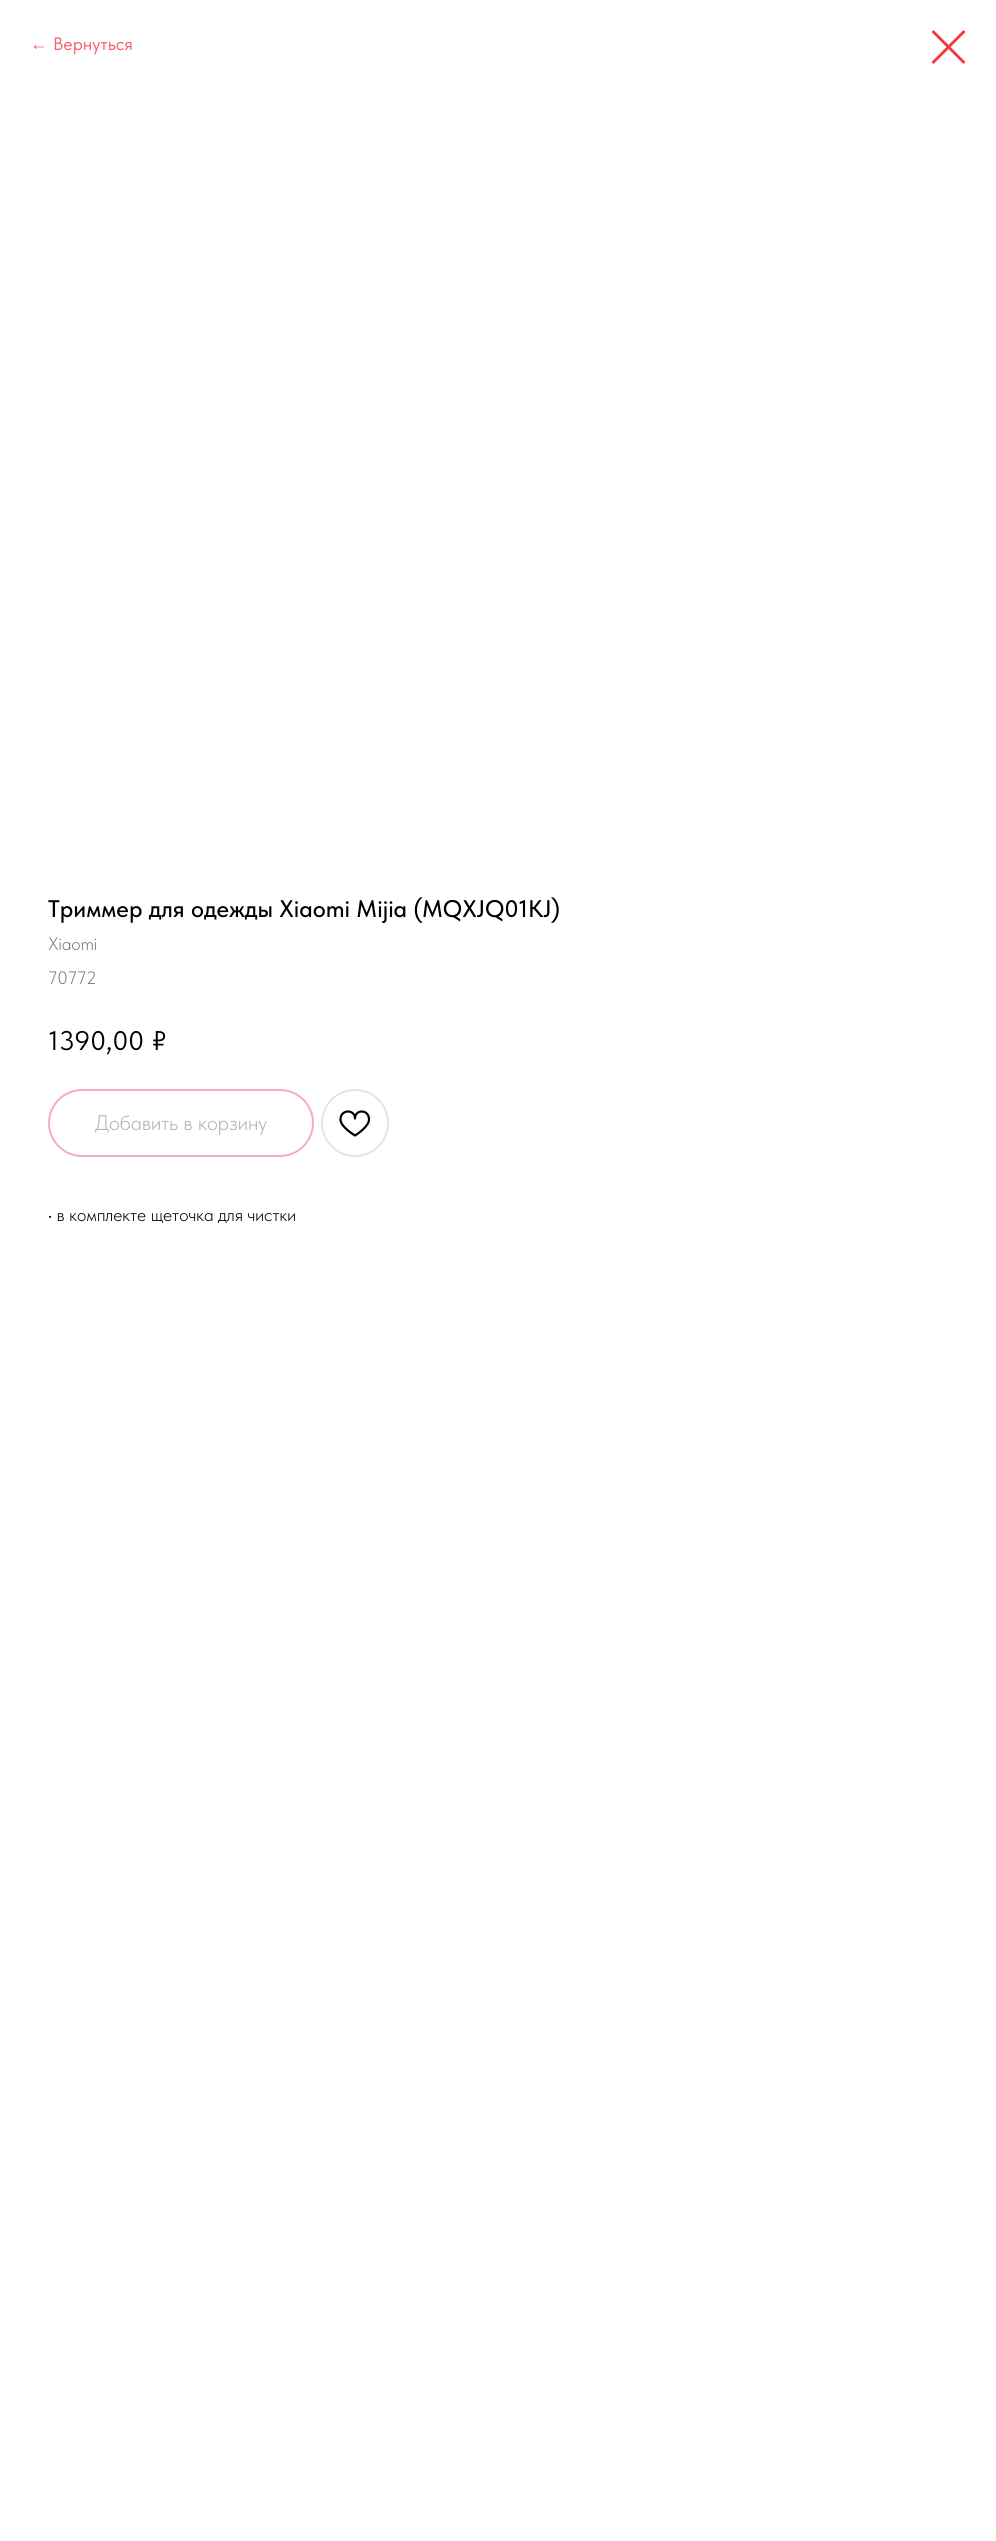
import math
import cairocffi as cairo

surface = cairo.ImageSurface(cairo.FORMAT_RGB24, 996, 2541)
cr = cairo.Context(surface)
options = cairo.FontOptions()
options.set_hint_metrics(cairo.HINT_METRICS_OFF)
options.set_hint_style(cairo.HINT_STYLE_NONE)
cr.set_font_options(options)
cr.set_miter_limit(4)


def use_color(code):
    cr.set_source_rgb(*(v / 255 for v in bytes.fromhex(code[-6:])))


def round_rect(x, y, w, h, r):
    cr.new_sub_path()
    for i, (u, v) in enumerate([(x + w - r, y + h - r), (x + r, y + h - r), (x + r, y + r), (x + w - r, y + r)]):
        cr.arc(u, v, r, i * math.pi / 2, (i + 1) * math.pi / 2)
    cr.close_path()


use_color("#ffffff")
cr.paint()
cr.select_font_face("Liberation Sans")
cr.set_font_size(18)
use_color("#f95d65")
cr.move_to(30, 50)
cr.show_text("←")
cr.select_font_face("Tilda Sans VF")
cr.move_to(53, 50)
cr.show_text("Вернуться")
use_color("#f8353e")
cr.set_fill_rule(cairo.FILL_RULE_EVEN_ODD)
cr.new_path()
cr.move_to(931.5, 32)
cr.line_to(933.5, 30)
cr.line_to(965.5, 62)
cr.line_to(963.5, 64)
cr.close_path()
cr.fill()
cr.new_path()
cr.move_to(963.5, 30)
cr.line_to(965.5, 32)
cr.line_to(933.5, 64)
cr.line_to(931.5, 62)
cr.close_path()
cr.fill()
cr.select_font_face("Tilda Sans VF Medium")
cr.set_font_size(24)
use_color("#000000")
cr.move_to(48, 917)
cr.show_text("Триммер для одежды Xiaomi Mijia (MQXJQ01KJ)")
cr.select_font_face("Tilda Sans VF Light")
cr.set_font_size(18)
use_color("#777777")
cr.move_to(48, 950)
cr.show_text("Xiaomi")
cr.move_to(48, 984)
cr.show_text("70772")
cr.select_font_face("Tilda Sans VF")
cr.set_font_size(27)
use_color("#000000")
cr.move_to(48, 1050)
cr.show_text("1390,00")
cr.move_to(152, 1050)
cr.show_text("₽")
round_rect(49, 1090, 264, 66, 33)
use_color("#f5adbd")
cr.stroke()
cr.select_font_face("Tilda Sans VF Light")
cr.set_font_size(21)
use_color("#b2b2b2")
cr.move_to(95, 1130)
cr.show_text("Добавить в корзину")
cr.new_path()
cr.arc(355, 1123, 33, 0, 2 * math.pi)
use_color("#e4e4e4")
cr.stroke()
cr.new_path()
cr.move_to(369, 1119.5)
cr.curve_to(369, 1127, 355, 1135.5, 355, 1135.5)
cr.curve_to(355, 1135.5, 340.5, 1127, 340.5, 1119.5)
cr.curve_to(340.5, 1109, 355, 1109, 355, 1118.5)
cr.curve_to(355, 1109, 369, 1109, 369, 1119.5)
cr.close_path()
use_color("#000000")
cr.set_line_width(2.2)
cr.set_line_join(cairo.LINE_JOIN_ROUND)
cr.stroke()
cr.set_font_size(18)
cr.move_to(48, 1221)
cr.show_text("• в комплекте щеточка для чистки")
surface.write_to_png("result.png")
